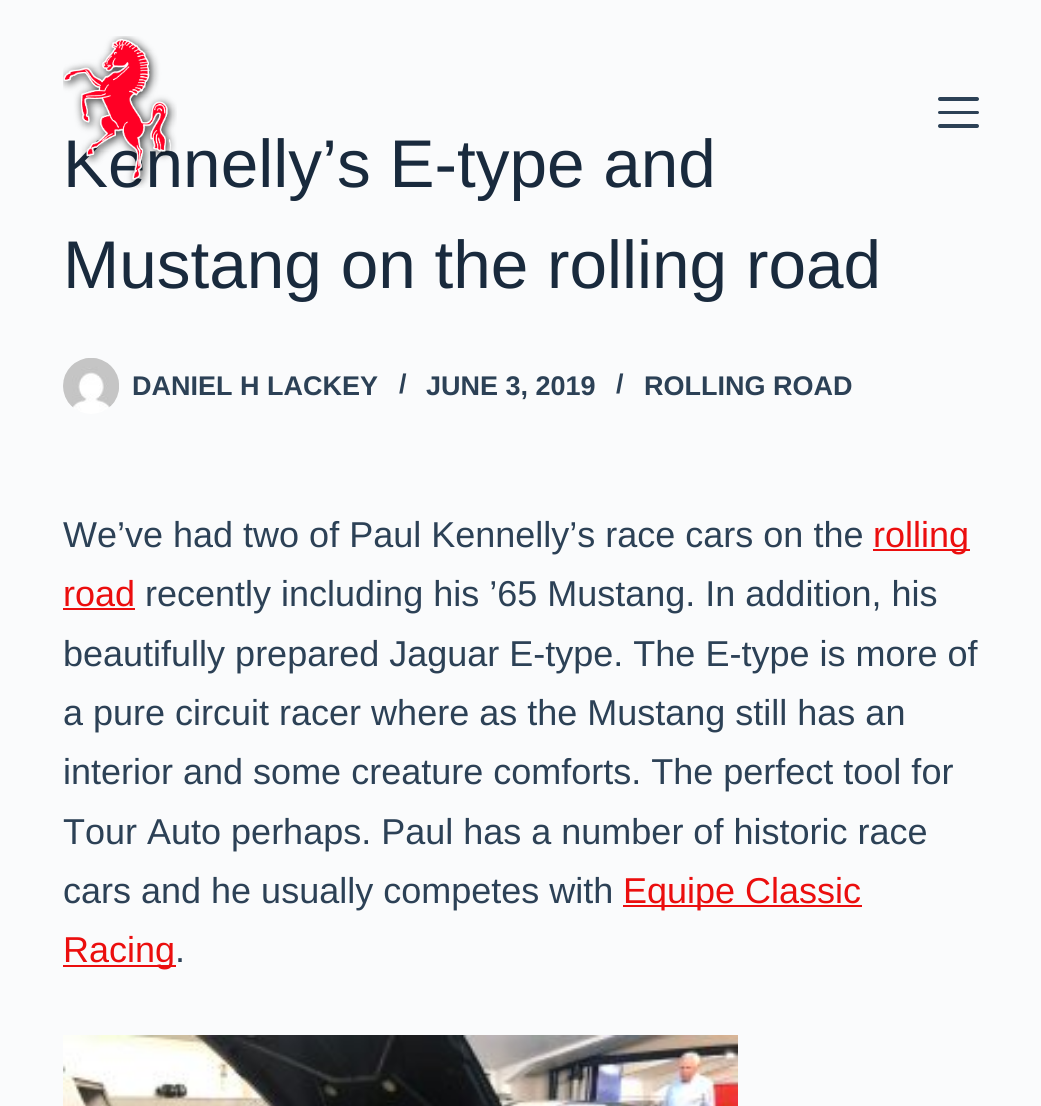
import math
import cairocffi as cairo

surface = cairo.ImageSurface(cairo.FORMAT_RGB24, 1041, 1106)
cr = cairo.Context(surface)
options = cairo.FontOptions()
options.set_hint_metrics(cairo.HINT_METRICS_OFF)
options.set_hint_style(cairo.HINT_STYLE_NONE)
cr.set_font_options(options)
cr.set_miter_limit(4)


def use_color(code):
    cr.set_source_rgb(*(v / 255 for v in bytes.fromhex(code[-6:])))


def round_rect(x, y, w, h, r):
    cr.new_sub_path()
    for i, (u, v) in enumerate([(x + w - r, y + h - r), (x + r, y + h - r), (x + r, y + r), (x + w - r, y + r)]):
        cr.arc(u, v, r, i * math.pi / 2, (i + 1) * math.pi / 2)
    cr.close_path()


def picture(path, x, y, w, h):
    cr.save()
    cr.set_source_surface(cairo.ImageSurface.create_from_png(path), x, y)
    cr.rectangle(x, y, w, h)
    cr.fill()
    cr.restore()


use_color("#fafbfc")
cr.paint()
cr.select_font_face("Liberation Sans")
cr.set_font_size(67.5)
use_color("#192a3d")
cr.move_to(63, 187)
cr.show_text("Kennelly’s E-type and")
picture("img1.png", 63, 36, 114, 152)
use_color("#2c4156")
round_rect(938, 97, 41, 4, 2)
cr.fill()
round_rect(938, 111, 41, 3, 1.5)
cr.fill()
round_rect(938, 124, 41, 4, 2)
cr.fill()
use_color("#192a3d")
cr.move_to(63, 288)
cr.show_text("Mustang on the rolling road")
picture("img2.png", 63, 358, 56, 56)
cr.select_font_face("Liberation Sans", cairo.FONT_SLANT_NORMAL, cairo.FONT_WEIGHT_BOLD)
cr.set_font_size(27)
use_color("#2c4156")
cr.move_to(132, 395)
cr.show_text("DANIEL H LACKEY")
cr.move_to(399, 393)
cr.show_text("/")
cr.move_to(426, 395)
cr.show_text("JUNE 3, 2019")
cr.move_to(616, 393)
cr.show_text("/")
cr.move_to(644, 395)
cr.show_text("ROLLING ROAD")
cr.select_font_face("Liberation Sans")
cr.set_font_size(36)
cr.move_to(63, 547)
cr.show_text("We’ve had two of Paul Kennelly’s race cars on the")
use_color("#eb0e0e")
cr.rectangle(873, 549, 97, 2)
cr.fill()
cr.move_to(873, 547)
cr.show_text("rolling")
cr.move_to(63, 606)
cr.show_text("road")
cr.rectangle(63, 608, 72, 2)
cr.fill()
use_color("#2c4156")
cr.move_to(145, 606)
cr.show_text("recently including his ’65 Mustang. In addition, his")
cr.move_to(63, 666)
cr.show_text("beautifully prepared Jaguar E-type. The E-type is more of")
cr.move_to(63, 725)
cr.show_text("a pure circuit racer where as the Mustang still has an")
cr.move_to(63, 784)
cr.show_text("interior and some creature comforts. The perfect tool for")
cr.move_to(63, 844)
cr.show_text("Tour Auto perhaps. Paul has a number of historic race")
cr.move_to(63, 903)
cr.show_text("cars and he usually competes with")
use_color("#eb0e0e")
cr.rectangle(623, 905, 239, 2)
cr.fill()
cr.move_to(623, 903)
cr.show_text("Equipe Classic")
cr.rectangle(63, 965, 113, 2)
cr.fill()
cr.move_to(63, 962)
cr.show_text("Racing")
use_color("#2c4156")
cr.move_to(175, 962)
cr.show_text(".")
picture("img3.png", 63, 1035, 675, 71)
surface.write_to_png("result.png")
